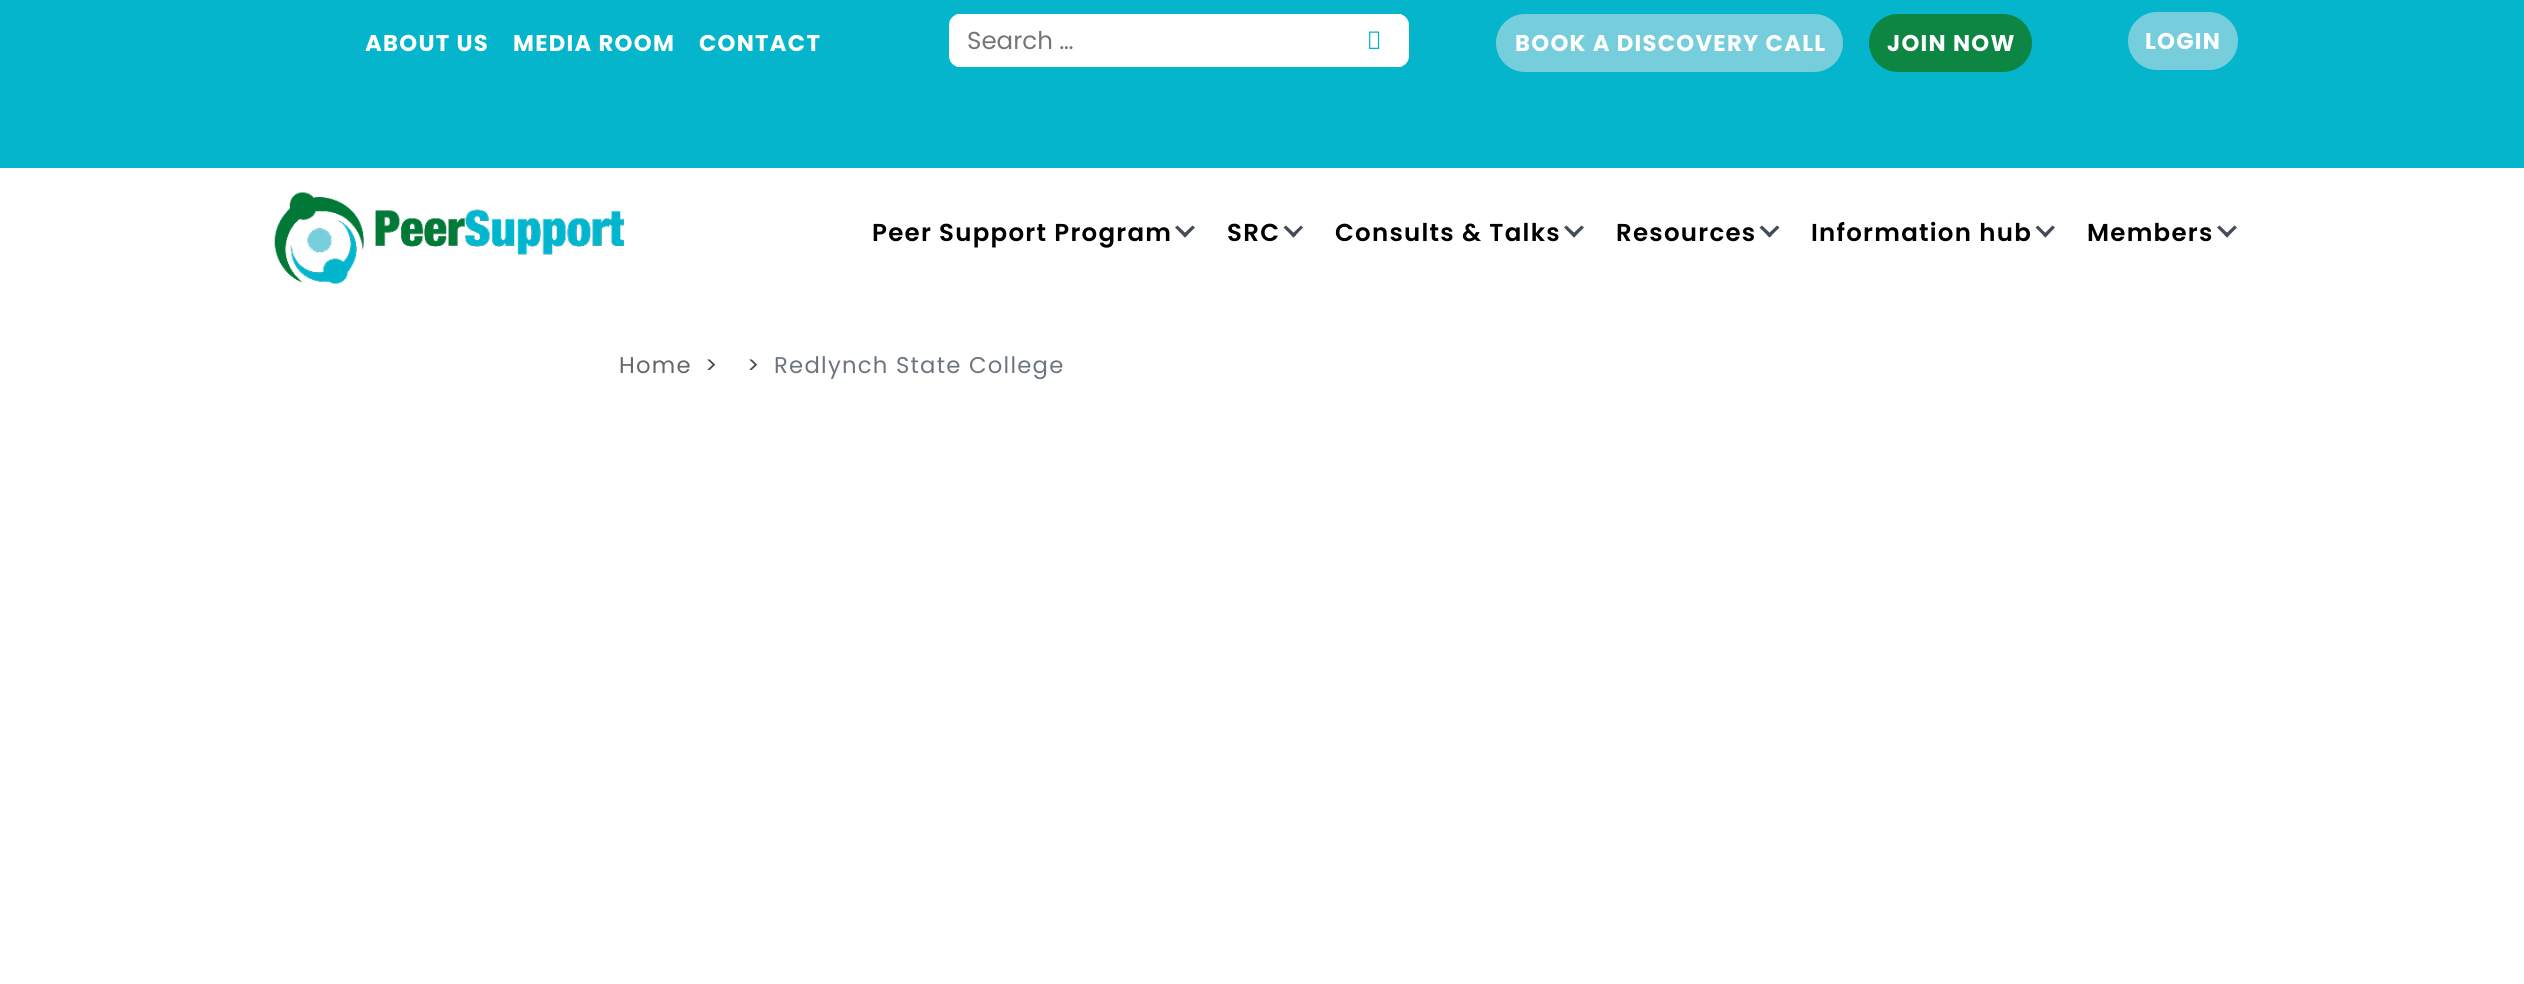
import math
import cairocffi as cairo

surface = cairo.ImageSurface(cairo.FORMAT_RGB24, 2524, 984)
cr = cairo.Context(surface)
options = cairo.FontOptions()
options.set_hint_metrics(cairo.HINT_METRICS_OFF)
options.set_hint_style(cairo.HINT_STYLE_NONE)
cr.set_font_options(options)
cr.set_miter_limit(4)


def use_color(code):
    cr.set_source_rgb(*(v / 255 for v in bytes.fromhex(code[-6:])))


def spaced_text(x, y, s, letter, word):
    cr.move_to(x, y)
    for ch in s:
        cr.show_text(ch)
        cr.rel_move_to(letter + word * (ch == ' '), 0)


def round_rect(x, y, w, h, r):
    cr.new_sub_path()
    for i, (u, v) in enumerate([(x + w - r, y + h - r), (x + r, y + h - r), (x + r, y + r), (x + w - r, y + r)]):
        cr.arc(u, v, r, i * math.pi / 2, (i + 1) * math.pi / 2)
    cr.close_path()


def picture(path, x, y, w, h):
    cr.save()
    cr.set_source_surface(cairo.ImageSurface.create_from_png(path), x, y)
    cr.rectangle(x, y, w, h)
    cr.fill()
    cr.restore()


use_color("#ffffff")
cr.paint()
use_color("#04b5cc")
cr.rectangle(0, 0, 2524, 168)
cr.fill()
cr.select_font_face("Poppins", cairo.FONT_SLANT_NORMAL, cairo.FONT_WEIGHT_BOLD)
cr.set_font_size(22.75)
use_color("#ffffff")
spaced_text(365, 51, "ABOUT US", 1.25, 0)
spaced_text(513, 51, "MEDIA ROOM", 1.25, 0)
spaced_text(699, 51, "CONTACT", 1.25, 0)
round_rect(949, 14, 460, 53, 11)
cr.fill()
cr.new_path()
cr.move_to(959, 14)
cr.line_to(1124, 14)
cr.line_to(1124, 67)
cr.line_to(959, 67)
cr.curve_to(956, 67, 954, 65, 954, 62)
cr.line_to(954, 19)
cr.curve_to(954, 16, 956, 14, 959, 14)
cr.close_path()
cr.fill()
cr.select_font_face("Poppins")
cr.set_font_size(24.5)
use_color("#757575")
cr.move_to(967, 49)
cr.show_text("Search …")
use_color("#ffffff")
cr.new_path()
cr.move_to(1356, 14)
cr.line_to(1399, 14)
cr.curve_to(1402, 14, 1404, 16, 1404, 19)
cr.line_to(1404, 62)
cr.curve_to(1404, 65, 1402, 67, 1399, 67)
cr.line_to(1356, 67)
cr.close_path()
cr.fill()
picture("img1.png", 1369, 31, 11, 18)
use_color("#76cedd")
round_rect(1496, 14, 347, 58, 29)
cr.fill()
cr.select_font_face("Poppins", cairo.FONT_SLANT_NORMAL, cairo.FONT_WEIGHT_BOLD)
cr.set_font_size(22.75)
use_color("#ffffff")
spaced_text(1515, 51, "BOOK A DISCOVERY CALL", 1.25, 0)
use_color("#0d8543")
round_rect(1869, 14, 163, 58, 29)
cr.fill()
use_color("#ffffff")
spaced_text(1887, 51, "JOIN NOW", 1.25, 0)
use_color("#76cedd")
round_rect(2128, 12, 110, 58, 29)
cr.fill()
use_color("#ffffff")
spaced_text(2145, 49, "LOGIN", 1.25, 0)
picture("img2.png", 274, 192, 350, 92)
cr.select_font_face("Poppins SemiBold")
cr.set_font_size(24.5)
use_color("#000000")
spaced_text(872, 241, "Peer Support Program", 1.25, 0)
use_color("#434b59")
cr.new_path()
cr.move_to(1192.5, 225.5)
cr.line_to(1195, 227.5)
cr.line_to(1185, 237.5)
cr.line_to(1182.5, 235)
cr.close_path()
cr.fill()
cr.new_path()
cr.move_to(1177.5, 225.5)
cr.line_to(1187.5, 235)
cr.line_to(1185, 237.5)
cr.line_to(1175, 227.5)
cr.close_path()
cr.fill()
use_color("#000000")
spaced_text(1227, 241, "SRC", 1.25, 0)
use_color("#434b59")
cr.new_path()
cr.move_to(1301, 225.5)
cr.line_to(1303, 227.5)
cr.line_to(1293.5, 237.5)
cr.line_to(1291, 235)
cr.close_path()
cr.fill()
cr.new_path()
cr.move_to(1286, 225.5)
cr.line_to(1296, 235)
cr.line_to(1293.5, 237.5)
cr.line_to(1283.5, 227.5)
cr.close_path()
cr.fill()
use_color("#000000")
spaced_text(1335, 241, "Consults & Talks", 1.25, 0)
use_color("#434b59")
cr.new_path()
cr.move_to(1581.5, 225.5)
cr.line_to(1584, 227.5)
cr.line_to(1574, 237.5)
cr.line_to(1571.5, 235)
cr.close_path()
cr.fill()
cr.new_path()
cr.move_to(1566.5, 225.5)
cr.line_to(1576.5, 235)
cr.line_to(1574, 237.5)
cr.line_to(1564, 227.5)
cr.close_path()
cr.fill()
use_color("#000000")
spaced_text(1616, 241, "Resources", 1.25, 0)
use_color("#434b59")
cr.new_path()
cr.move_to(1777, 225.5)
cr.line_to(1779.5, 227.5)
cr.line_to(1769.5, 237.5)
cr.line_to(1767, 235)
cr.close_path()
cr.fill()
cr.new_path()
cr.move_to(1762, 225.5)
cr.line_to(1772, 235)
cr.line_to(1769.5, 237.5)
cr.line_to(1759.5, 227.5)
cr.close_path()
cr.fill()
use_color("#000000")
spaced_text(1811, 241, "Information hub", 1.25, 0)
use_color("#434b59")
cr.new_path()
cr.move_to(2052.5, 225.5)
cr.line_to(2055, 227.5)
cr.line_to(2045.5, 237.5)
cr.line_to(2043, 235)
cr.close_path()
cr.fill()
cr.new_path()
cr.move_to(2038, 225.5)
cr.line_to(2047.5, 235)
cr.line_to(2045.5, 237.5)
cr.line_to(2035.5, 227.5)
cr.close_path()
cr.fill()
use_color("#000000")
spaced_text(2087, 241, "Members", 1.25, 0)
use_color("#434b59")
cr.new_path()
cr.move_to(2234.5, 225.5)
cr.line_to(2237, 227.5)
cr.line_to(2227, 237.5)
cr.line_to(2224.5, 235)
cr.close_path()
cr.fill()
cr.new_path()
cr.move_to(2219.5, 225.5)
cr.line_to(2229.5, 235)
cr.line_to(2227, 237.5)
cr.line_to(2217, 227.5)
cr.close_path()
cr.fill()
cr.select_font_face("Poppins")
cr.set_font_size(22.75)
use_color("#676767")
spaced_text(619, 373, "Home", 1.25, 0)
use_color("#434b59")
spaced_text(705, 373, ">", 1.25, 0)
spaced_text(747, 373, ">", 1.25, 0)
use_color("#6c757d")
spaced_text(774, 373, "Redlynch State College", 1.25, 0)
surface.write_to_png("result.png")
